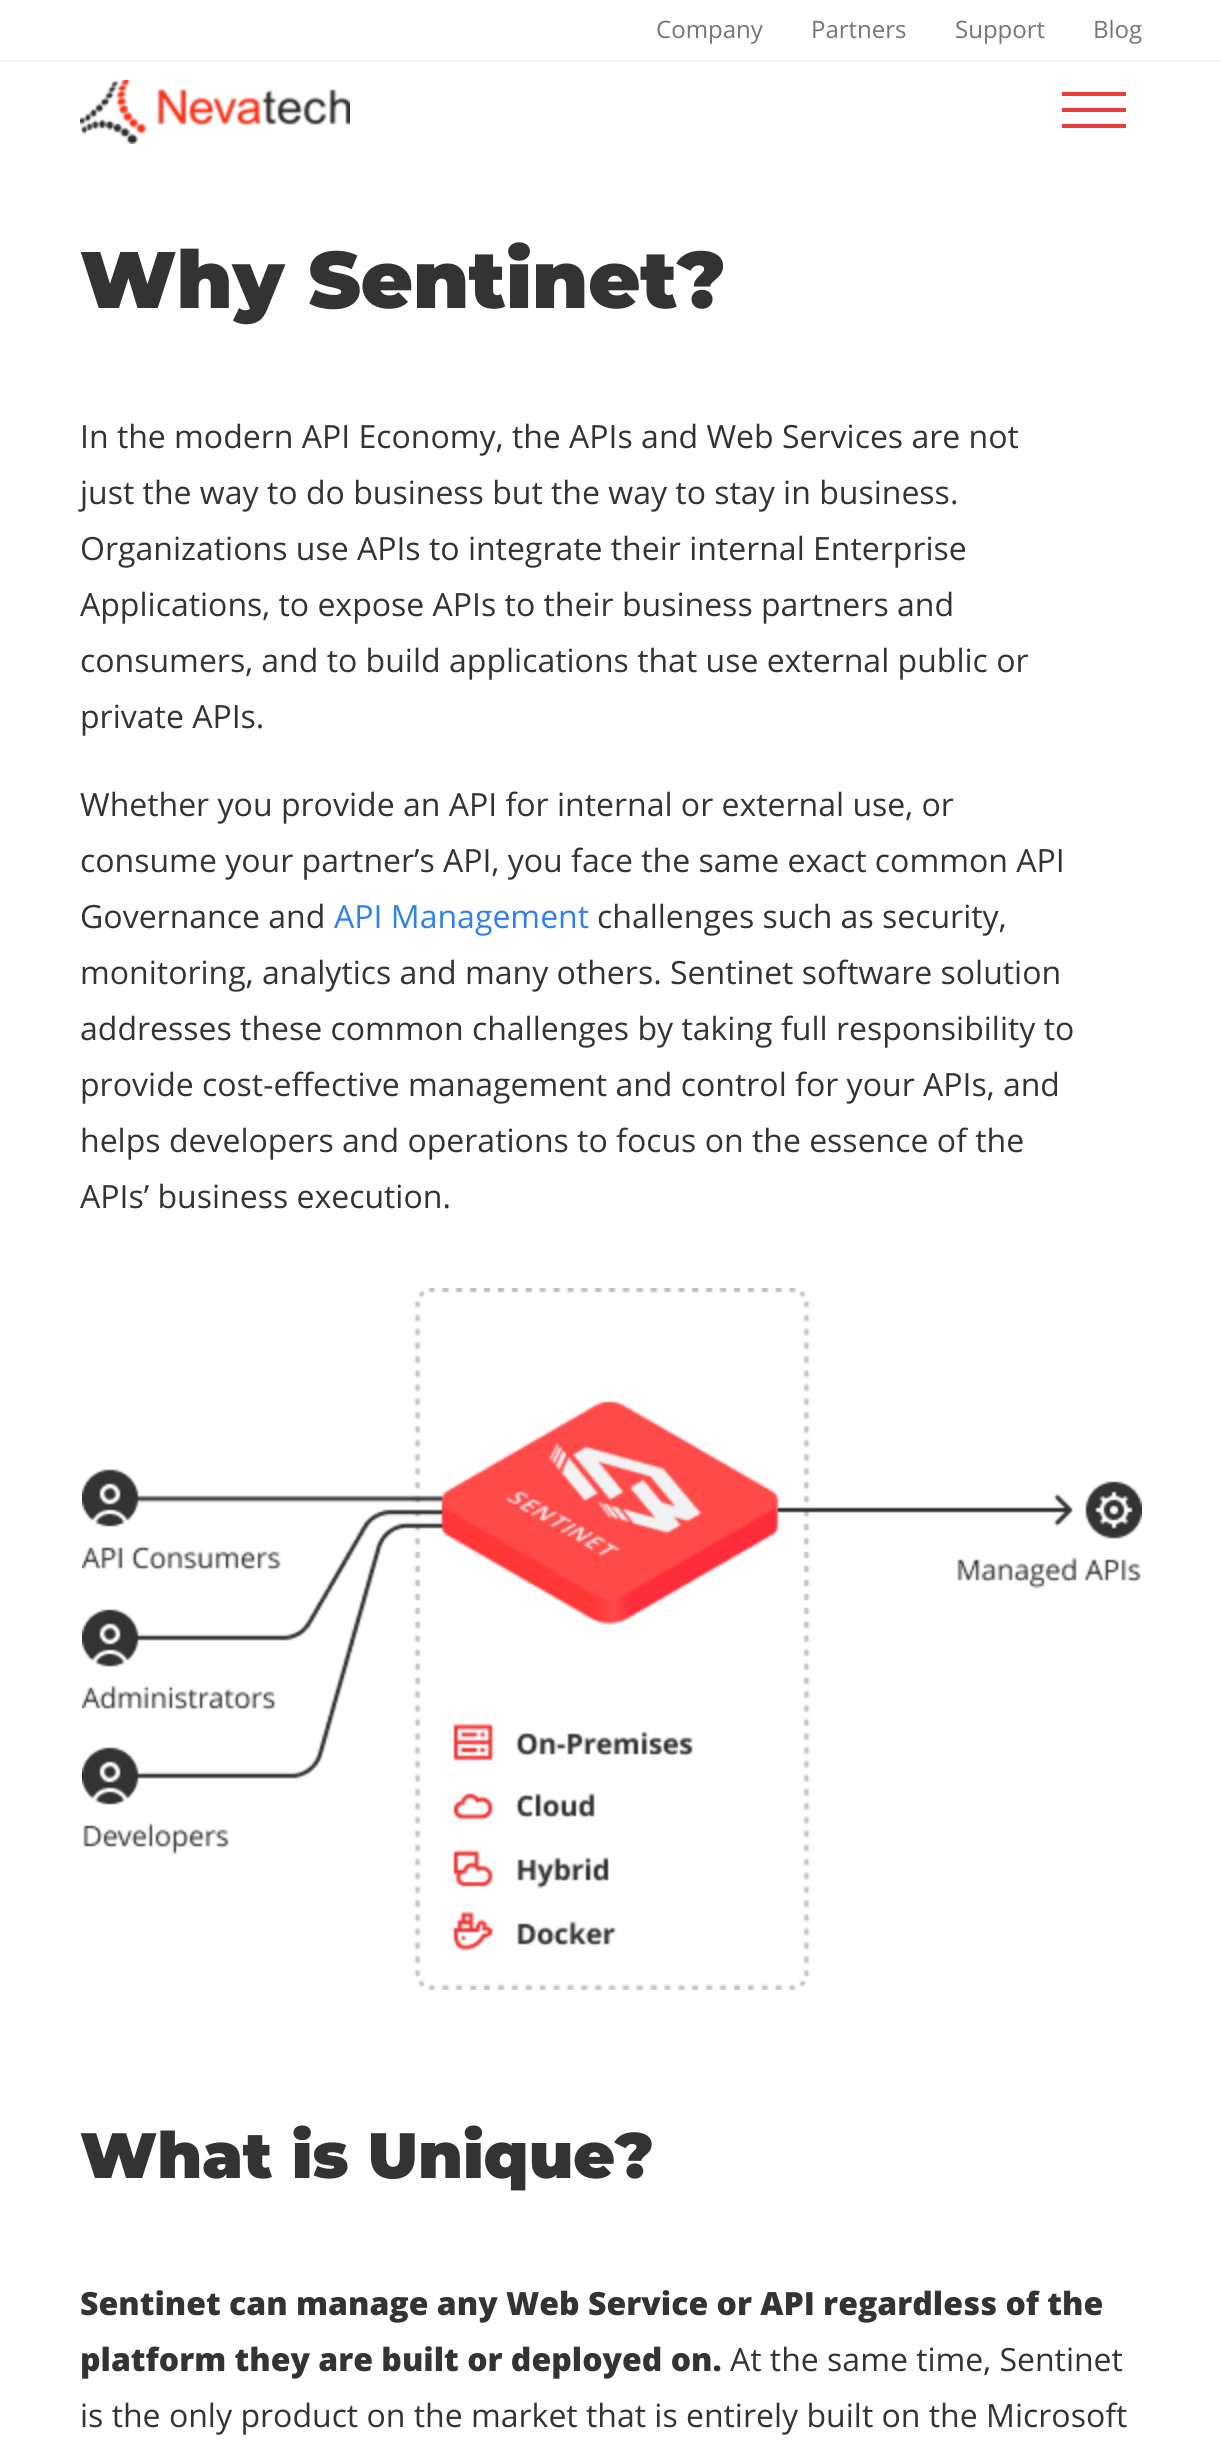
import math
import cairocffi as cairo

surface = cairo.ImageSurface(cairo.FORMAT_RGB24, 1221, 2452)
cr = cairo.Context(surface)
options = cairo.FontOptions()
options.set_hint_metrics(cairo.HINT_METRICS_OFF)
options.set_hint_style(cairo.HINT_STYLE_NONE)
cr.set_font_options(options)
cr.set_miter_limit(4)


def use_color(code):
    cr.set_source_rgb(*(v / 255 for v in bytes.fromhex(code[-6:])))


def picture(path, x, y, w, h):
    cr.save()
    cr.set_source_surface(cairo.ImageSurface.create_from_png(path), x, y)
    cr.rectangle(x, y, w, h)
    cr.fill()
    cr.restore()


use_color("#ffffff")
cr.paint()
use_color("#f2f2f2")
cr.rectangle(0, 60, 1221, 2)
cr.fill()
cr.select_font_face("Open Sans")
cr.set_font_size(24)
use_color("#757575")
cr.move_to(656, 38)
cr.show_text("Company")
cr.move_to(811, 38)
cr.show_text("Partners")
cr.move_to(955, 38)
cr.show_text("Support")
cr.move_to(1093, 38)
cr.show_text("Blog")
picture("img1.png", 80, 80, 270, 64)
use_color("#ee3a3a")
cr.rectangle(1062, 92, 64, 4)
cr.fill()
cr.rectangle(1062, 108, 64, 4)
cr.fill()
cr.rectangle(1062, 124, 64, 4)
cr.fill()
cr.select_font_face("Montserrat Black")
cr.set_font_size(80)
use_color("#333333")
cr.move_to(80, 308)
cr.show_text("Why Sentinet?")
cr.select_font_face("Open Sans")
cr.set_font_size(32)
cr.move_to(80, 448)
cr.show_text("In the modern API Economy, the APIs and Web Services are not")
cr.move_to(80, 504)
cr.show_text("just the way to do business but the way to stay in business.")
cr.move_to(80, 560)
cr.show_text("Organizations use APIs to integrate their internal Enterprise")
cr.move_to(80, 616)
cr.show_text("Applications, to expose APIs to their business partners and")
cr.move_to(80, 672)
cr.show_text("consumers, and to build applications that use external public or")
cr.move_to(80, 728)
cr.show_text("private APIs.")
cr.move_to(80, 816)
cr.show_text("Whether you provide an API for internal or external use, or")
cr.move_to(80, 872)
cr.show_text("consume your partner’s API, you face the same exact common API")
cr.move_to(80, 928)
cr.show_text("Governance and")
use_color("#2f80ed")
cr.move_to(334, 928)
cr.show_text("API Management")
use_color("#333333")
cr.move_to(597, 928)
cr.show_text("challenges such as security,")
cr.move_to(80, 984)
cr.show_text("monitoring, analytics and many others. Sentinet software solution")
cr.move_to(80, 1040)
cr.show_text("addresses these common challenges by taking full responsibility to")
cr.move_to(80, 1096)
cr.show_text("provide cost-effective management and control for your APIs, and")
cr.move_to(80, 1152)
cr.show_text("helps developers and operations to focus on the essence of the")
cr.move_to(80, 1208)
cr.show_text("APIs’ business execution.")
picture("img2.png", 82, 1288, 1060, 702)
cr.select_font_face("Montserrat Black")
cr.set_font_size(64)
cr.move_to(80, 2178)
cr.show_text("What is Unique?")
cr.select_font_face("Open Sans ExtraBold")
cr.set_font_size(32)
cr.move_to(80, 2315)
cr.show_text("Sentinet can manage any Web Service or API regardless of the")
cr.move_to(80, 2371)
cr.show_text("platform they are built or deployed on.")
cr.select_font_face("Open Sans")
cr.move_to(730, 2371)
cr.show_text("At the same time, Sentinet")
cr.move_to(80, 2427)
cr.show_text("is the only product on the market that is entirely built on the Microsoft")
surface.write_to_png("result.png")
